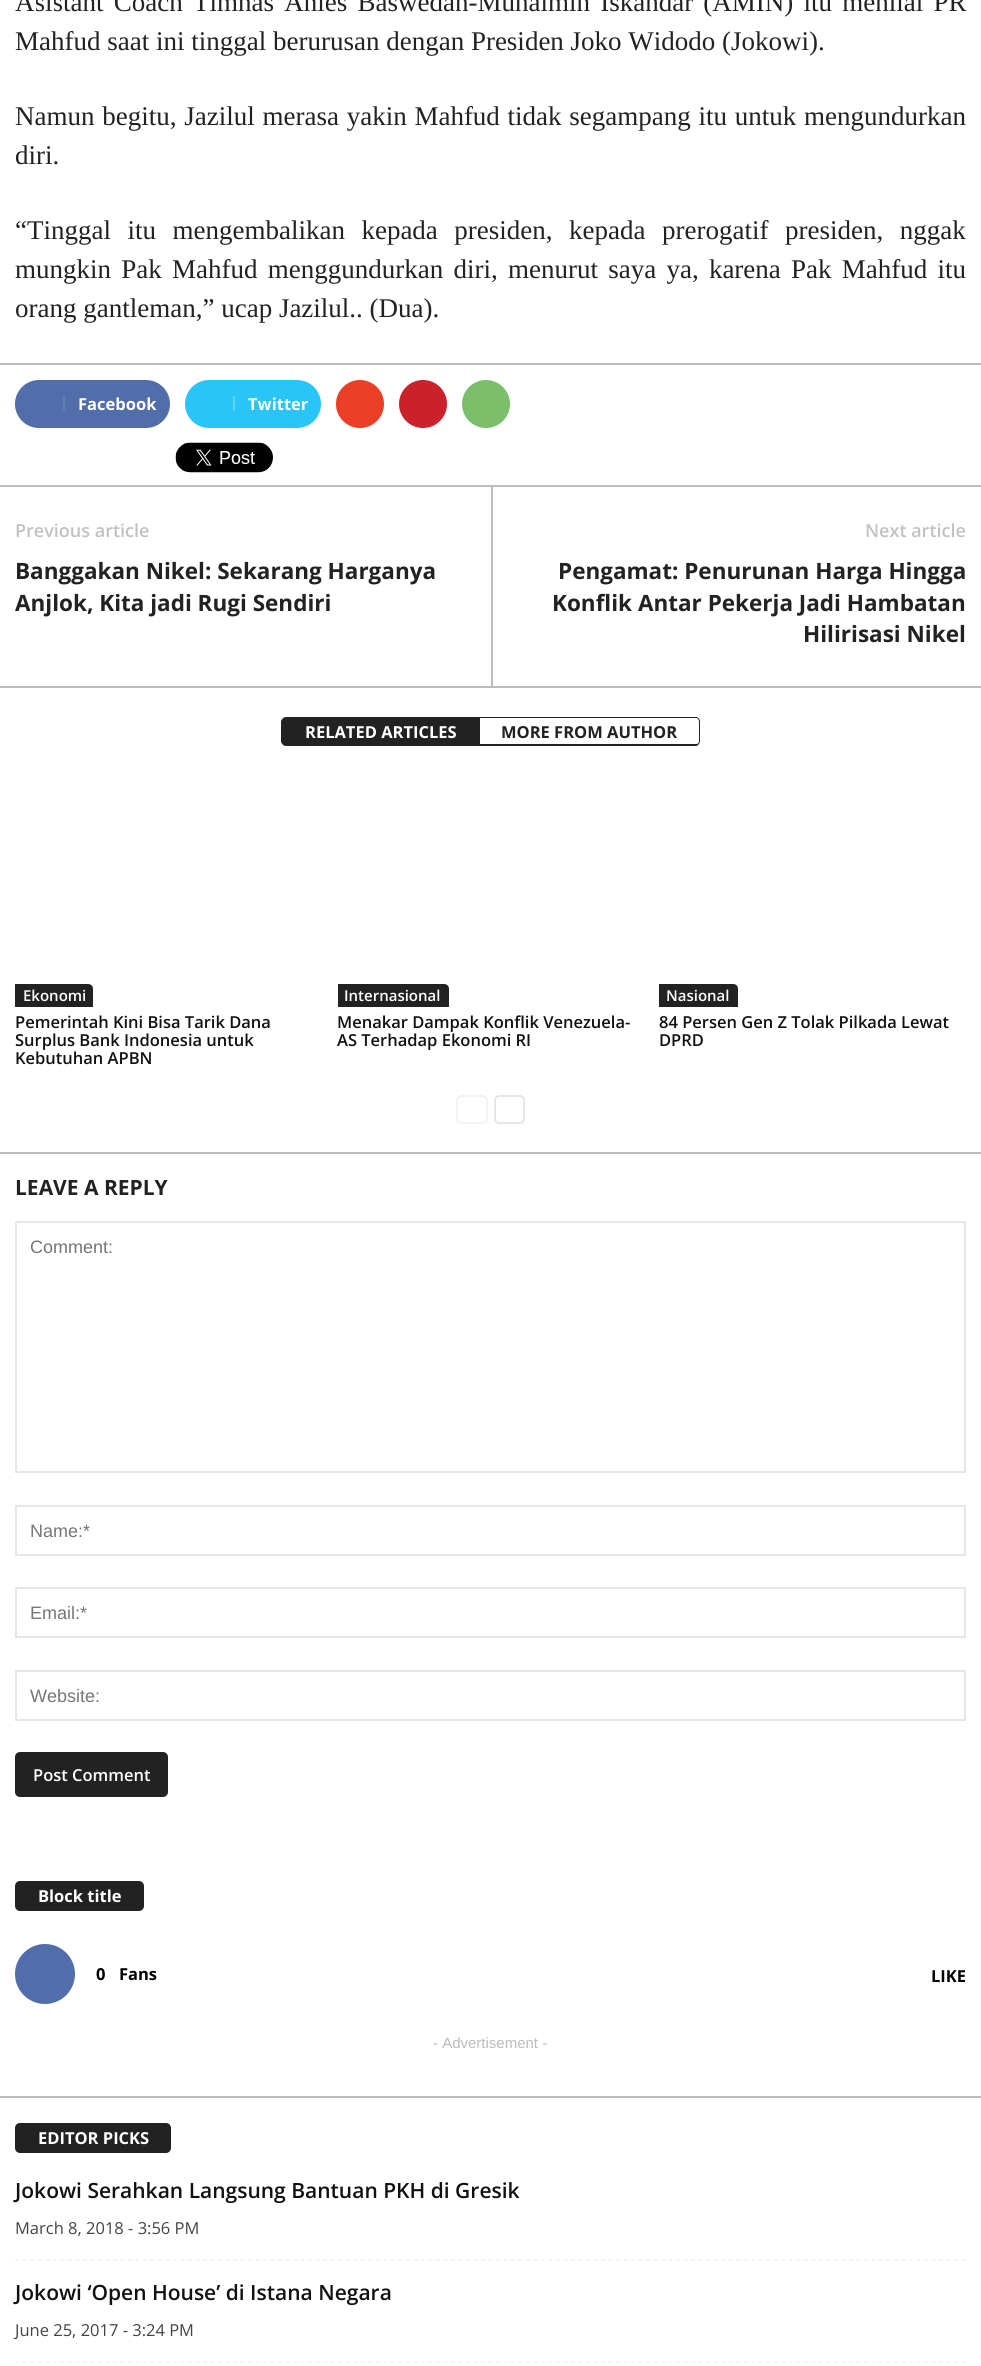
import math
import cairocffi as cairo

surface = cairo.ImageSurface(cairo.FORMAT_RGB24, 981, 2366)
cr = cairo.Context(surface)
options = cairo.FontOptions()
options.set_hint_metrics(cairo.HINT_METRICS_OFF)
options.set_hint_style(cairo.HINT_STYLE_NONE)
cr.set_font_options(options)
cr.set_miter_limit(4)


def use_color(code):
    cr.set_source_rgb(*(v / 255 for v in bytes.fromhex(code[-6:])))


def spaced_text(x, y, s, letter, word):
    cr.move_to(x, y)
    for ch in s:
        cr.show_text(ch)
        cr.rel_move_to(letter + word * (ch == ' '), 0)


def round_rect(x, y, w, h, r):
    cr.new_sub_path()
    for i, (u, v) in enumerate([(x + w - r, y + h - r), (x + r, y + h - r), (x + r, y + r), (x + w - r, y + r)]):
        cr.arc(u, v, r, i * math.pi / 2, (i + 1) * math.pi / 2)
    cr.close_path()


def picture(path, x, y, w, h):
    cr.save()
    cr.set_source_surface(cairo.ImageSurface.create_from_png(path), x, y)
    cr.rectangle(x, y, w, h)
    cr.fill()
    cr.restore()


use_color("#ffffff")
cr.paint()
cr.select_font_face("Liberation Serif")
cr.set_font_size(27)
use_color("#222222")
spaced_text(15, 11, "Asistant Coach Timnas Anies Baswedan-Muhaimin Iskandar (AMIN) itu menilai PR", 0, 3.5)
cr.move_to(15, 50)
cr.show_text("Mahfud saat ini tinggal berurusan dengan Presiden Joko Widodo (Jokowi).")
spaced_text(15, 125, "Namun begitu, Jazilul merasa yakin Mahfud tidak segampang itu untuk mengundurkan", 0, 1)
cr.move_to(15, 164)
cr.show_text("diri.")
spaced_text(15, 239, "“Tinggal itu mengembalikan kepada presiden, kepada prerogatif presiden, nggak", 0, 9.75)
spaced_text(15, 278, "mungkin Pak Mahfud menggundurkan diri, menurut saya ya, karena Pak Mahfud itu", 0, 3.5)
cr.move_to(15, 317)
cr.show_text("orang gantleman,” ucap Jazilul.. (Dua).")
use_color("#bcbcbc")
cr.rectangle(0, 363, 981, 2)
cr.fill()
use_color("#516eab")
round_rect(15, 380, 155, 48, 24)
cr.fill()
use_color("#627db3")
cr.rectangle(63, 396, 2, 15)
cr.fill()
cr.select_font_face("Open Sans", cairo.FONT_SLANT_NORMAL, cairo.FONT_WEIGHT_BOLD)
cr.set_font_size(16.5)
use_color("#ffffff")
cr.move_to(78, 410)
cr.show_text("Facebook")
use_color("#29c5f6")
round_rect(185, 380, 136, 48, 24)
cr.fill()
use_color("#5fd4f8")
cr.rectangle(233, 396, 2, 15)
cr.fill()
use_color("#ffffff")
cr.move_to(248, 410)
cr.show_text("Twitter")
use_color("#eb4026")
cr.new_path()
cr.arc(360, 404, 24, 0, 2 * math.pi)
cr.fill()
use_color("#ca212a")
cr.arc(423, 404, 24, 0, 2 * math.pi)
cr.fill()
use_color("#7bbf6a")
cr.arc(486, 404, 24, 0, 2 * math.pi)
cr.fill()
picture("img1.png", 175, 442, 98, 31)
use_color("#bcbcbc")
cr.rectangle(0, 485, 981, 2)
cr.fill()
cr.select_font_face("Open Sans SemiBold")
cr.set_font_size(18)
use_color("#c1c1c1")
cr.move_to(15, 537)
cr.show_text("Previous article")
cr.select_font_face("Open Sans", cairo.FONT_SLANT_NORMAL, cairo.FONT_WEIGHT_BOLD)
cr.set_font_size(22.5)
use_color("#222222")
cr.move_to(15, 579)
cr.show_text("Banggakan Nikel: Sekarang Harganya")
cr.move_to(15, 611)
cr.show_text("Anjlok, Kita jadi Rugi Sendiri")
use_color("#bcbcbc")
cr.rectangle(491, 486, 2, 200)
cr.fill()
cr.select_font_face("Open Sans SemiBold")
cr.set_font_size(18)
use_color("#c1c1c1")
cr.move_to(865, 537)
cr.show_text("Next article")
cr.select_font_face("Open Sans", cairo.FONT_SLANT_NORMAL, cairo.FONT_WEIGHT_BOLD)
cr.set_font_size(22.5)
use_color("#222222")
cr.move_to(558, 579)
cr.show_text("Pengamat: Penurunan Harga Hingga")
cr.move_to(552, 611)
cr.show_text("Konflik Antar Pekerja Jadi Hambatan")
cr.move_to(803, 642)
cr.show_text("Hilirisasi Nikel")
use_color("#bcbcbc")
cr.rectangle(0, 686, 981, 2)
cr.fill()
use_color("#222222")
cr.new_path()
cr.move_to(286, 718)
cr.line_to(479, 718)
cr.line_to(479, 745)
cr.line_to(286, 745)
cr.curve_to(284, 745, 282, 743, 282, 741)
cr.line_to(282, 722)
cr.curve_to(282, 720, 284, 718, 286, 718)
cr.close_path()
cr.fill_preserve()
cr.stroke()
cr.set_font_size(16.5)
use_color("#ffffff")
cr.move_to(305, 738)
cr.show_text("RELATED ARTICLES")
use_color("#222222")
cr.set_fill_rule(cairo.FILL_RULE_EVEN_ODD)
cr.new_path()
cr.move_to(480, 717)
cr.line_to(696, 717)
cr.curve_to(698, 717, 700, 719, 700, 722)
cr.line_to(700, 741)
cr.curve_to(700, 743, 698, 746, 696, 746)
cr.line_to(480, 746)
cr.close_path()
cr.move_to(480, 718)
cr.line_to(696, 718)
cr.curve_to(698, 718, 699, 720, 699, 722)
cr.line_to(699, 741)
cr.curve_to(699, 743, 698, 744, 696, 744)
cr.line_to(480, 744)
cr.close_path()
cr.fill()
cr.move_to(501, 738)
cr.show_text("MORE FROM AUTHOR")
cr.new_path()
cr.move_to(15, 984)
cr.line_to(88, 984)
cr.curve_to(91, 984, 93, 986, 93, 989)
cr.line_to(93, 1007)
cr.line_to(15, 1007)
cr.close_path()
cr.fill()
cr.select_font_face("Open Sans SemiBold")
cr.set_font_size(15)
use_color("#ffffff")
cr.move_to(23, 1001)
cr.show_text("Ekonomi")
cr.set_font_size(16.5)
use_color("#111111")
cr.move_to(15, 1028)
cr.show_text("Pemerintah Kini Bisa Tarik Dana")
cr.move_to(15, 1046)
cr.show_text("Surplus Bank Indonesia untuk")
cr.move_to(15, 1064)
cr.show_text("Kebutuhan APBN")
use_color("#222222")
cr.new_path()
cr.move_to(338, 984)
cr.line_to(444, 984)
cr.curve_to(447, 984, 449, 986, 449, 989)
cr.line_to(449, 1007)
cr.line_to(338, 1007)
cr.close_path()
cr.fill()
cr.set_font_size(15)
use_color("#ffffff")
cr.move_to(344, 1001)
cr.show_text("Internasional")
cr.set_font_size(16.5)
use_color("#111111")
cr.move_to(337, 1028)
cr.show_text("Menakar Dampak Konflik Venezuela-")
cr.move_to(337, 1046)
cr.show_text("AS Terhadap Ekonomi RI")
use_color("#222222")
cr.new_path()
cr.move_to(659, 984)
cr.line_to(733, 984)
cr.curve_to(736, 984, 738, 986, 738, 989)
cr.line_to(738, 1007)
cr.line_to(659, 1007)
cr.close_path()
cr.fill()
cr.set_font_size(15)
use_color("#ffffff")
cr.move_to(666, 1001)
cr.show_text("Nasional")
cr.set_font_size(16.5)
use_color("#111111")
cr.move_to(659, 1028)
cr.show_text("84 Persen Gen Z Tolak Pilkada Lewat")
cr.move_to(659, 1046)
cr.show_text("DPRD")
round_rect(457, 1096, 30, 27, 4)
use_color("#f3f3f3")
cr.stroke()
round_rect(495, 1096, 29, 27, 4)
use_color("#e6e6e6")
cr.stroke()
use_color("#bcbcbc")
cr.rectangle(0, 1152, 981, 2)
cr.fill()
cr.select_font_face("Open Sans", cairo.FONT_SLANT_NORMAL, cairo.FONT_WEIGHT_BOLD)
cr.set_font_size(21)
use_color("#222222")
cr.move_to(15, 1195)
cr.show_text("LEAVE A REPLY")
cr.rectangle(16, 1222, 949, 250)
use_color("#e6e6e6")
cr.stroke()
cr.select_font_face("Liberation Sans")
cr.set_font_size(18)
use_color("#757575")
cr.move_to(30, 1253)
cr.show_text("Comment:")
cr.rectangle(16, 1506, 949, 49)
use_color("#e6e6e6")
cr.stroke()
use_color("#757575")
cr.move_to(30, 1537)
cr.show_text("Name:*")
cr.rectangle(16, 1588, 949, 49)
use_color("#e6e6e6")
cr.stroke()
use_color("#757575")
cr.move_to(30, 1619)
cr.show_text("Email:*")
cr.rectangle(16, 1671, 949, 49)
use_color("#e6e6e6")
cr.stroke()
use_color("#757575")
cr.move_to(30, 1702)
cr.show_text("Website:")
use_color("#222222")
round_rect(15, 1752, 153, 45, 5)
cr.fill()
cr.select_font_face("Open Sans SemiBold")
cr.set_font_size(16.5)
use_color("#ffffff")
cr.move_to(33, 1781)
cr.show_text("Post Comment")
use_color("#222222")
round_rect(15, 1881, 129, 30, 5)
cr.fill()
cr.select_font_face("Open Sans", cairo.FONT_SLANT_NORMAL, cairo.FONT_WEIGHT_BOLD)
use_color("#ffffff")
cr.move_to(38, 1902)
cr.show_text("Block title")
use_color("#516eab")
cr.new_path()
cr.arc(45, 1974, 30, 0, 2 * math.pi)
cr.fill()
use_color("#000000")
cr.move_to(96, 1980)
cr.show_text("0")
cr.move_to(119, 1980)
cr.show_text("Fans")
cr.move_to(931, 1982)
cr.show_text("LIKE")
cr.select_font_face("Liberation Sans")
cr.set_font_size(15)
use_color("#bbbbbb")
cr.move_to(433, 2048)
cr.show_text("- Advertisement -")
use_color("#bcbcbc")
cr.rectangle(0, 2096, 981, 2)
cr.fill()
use_color("#222222")
round_rect(15, 2123, 156, 30, 5)
cr.fill()
cr.select_font_face("Open Sans", cairo.FONT_SLANT_NORMAL, cairo.FONT_WEIGHT_BOLD)
cr.set_font_size(16.5)
use_color("#ffffff")
cr.move_to(38, 2144)
cr.show_text("EDITOR PICKS")
cr.new_path()
cr.move_to(15, 2260)
cr.line_to(966, 2260)
use_color("#f1f1f1")
cr.set_line_width(1.5)
cr.set_dash([4.5, 3.01])
cr.stroke()
cr.select_font_face("Open Sans SemiBold")
cr.set_font_size(21)
use_color("#111111")
cr.move_to(15, 2198)
cr.show_text("Jokowi Serahkan Langsung Bantuan PKH di Gresik")
cr.select_font_face("Open Sans")
cr.set_font_size(16.5)
use_color("#444444")
cr.move_to(15, 2234)
cr.show_text("March 8, 2018 - 3:56 PM")
cr.new_path()
cr.move_to(15, 2362)
cr.line_to(966, 2362)
use_color("#f1f1f1")
cr.stroke()
cr.select_font_face("Open Sans SemiBold")
cr.set_font_size(21)
use_color("#111111")
cr.move_to(15, 2300)
cr.show_text("Jokowi ‘Open House’ di Istana Negara")
cr.select_font_face("Open Sans")
cr.set_font_size(16.5)
use_color("#444444")
cr.move_to(15, 2336)
cr.show_text("June 25, 2017 - 3:24 PM")
surface.write_to_png("result.png")
